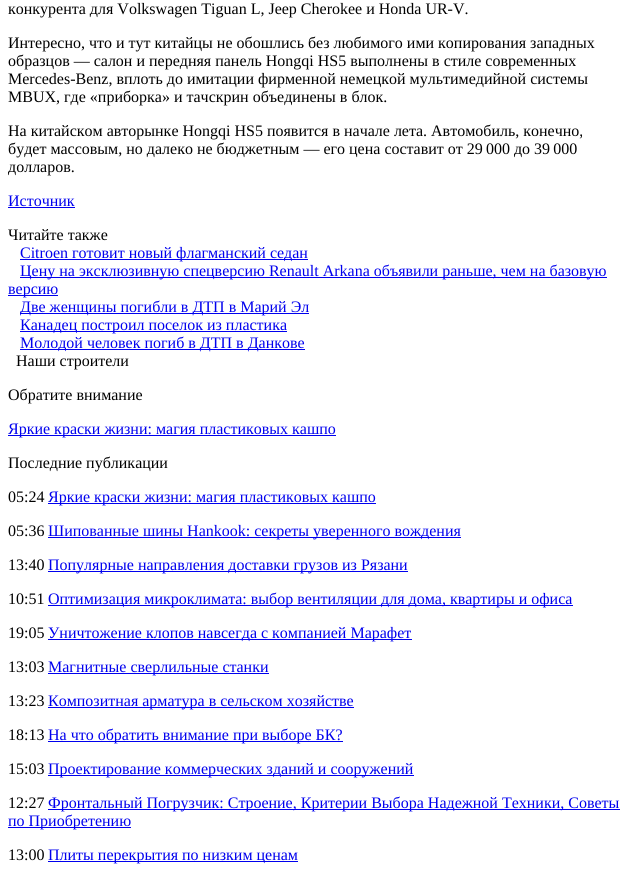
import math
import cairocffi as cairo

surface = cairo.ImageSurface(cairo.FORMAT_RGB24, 633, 886)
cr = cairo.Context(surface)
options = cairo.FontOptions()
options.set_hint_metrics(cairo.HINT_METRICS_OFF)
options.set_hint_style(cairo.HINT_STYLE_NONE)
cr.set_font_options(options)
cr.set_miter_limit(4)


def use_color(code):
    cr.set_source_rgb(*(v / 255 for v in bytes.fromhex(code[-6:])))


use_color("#ffffff")
cr.paint()
cr.select_font_face("Liberation Serif")
cr.set_font_size(16)
use_color("#000000")
cr.move_to(8, 14)
cr.show_text("конкурента для Volkswagen Tiguan L, Jeep Cherokee и Honda UR-V.")
cr.move_to(8, 48)
cr.show_text("Интересно, что и тут китайцы не обошлись без любимого ими копирования западных")
cr.move_to(8, 66)
cr.show_text("образцов — салон и передняя панель Hongqi HS5 выполнены в стиле современных")
cr.move_to(8, 84)
cr.show_text("Mercedes-Benz, вплоть до имитации фирменной немецкой мультимедийной системы")
cr.move_to(8, 102)
cr.show_text("MBUX, где «приборка» и тачскрин объединены в блок.")
cr.move_to(8, 136)
cr.show_text("На китайском авторынке Hongqi HS5 появится в начале лета. Автомобиль, конечно,")
cr.move_to(8, 154)
cr.show_text("будет массовым, но далеко не бюджетным — его цена составит от 29 000 до 39 000")
cr.move_to(8, 172)
cr.show_text("долларов.")
use_color("#0000ee")
cr.move_to(8, 206)
cr.show_text("Источник")
cr.rectangle(8, 207, 67, 1)
cr.fill()
use_color("#000000")
cr.move_to(8, 240)
cr.show_text("Читайте также")
use_color("#0000ee")
cr.rectangle(20, 259, 288, 1)
cr.fill()
cr.move_to(20, 258)
cr.show_text("Citroen готовит новый флагманский седан")
cr.rectangle(20, 277, 587, 1)
cr.fill()
cr.move_to(20, 276)
cr.show_text("Цену на эксклюзивную спецверсию Renault Arkana объявили раньше, чем на базовую")
cr.rectangle(8, 295, 50, 1)
cr.fill()
cr.move_to(8, 294)
cr.show_text("версию")
cr.rectangle(20, 313, 289, 1)
cr.fill()
cr.move_to(20, 312)
cr.show_text("Две женщины погибли в ДТП в Марий Эл")
cr.rectangle(20, 331, 267, 1)
cr.fill()
cr.move_to(20, 330)
cr.show_text("Канадец построил поселок из пластика")
cr.rectangle(20, 349, 285, 1)
cr.fill()
cr.move_to(20, 348)
cr.show_text("Молодой человек погиб в ДТП в Данкове")
use_color("#000000")
cr.move_to(16, 366)
cr.show_text("Наши строители")
cr.move_to(8, 400)
cr.show_text("Обратите внимание")
use_color("#0000ee")
cr.rectangle(8, 435, 328, 1)
cr.fill()
cr.move_to(8, 434)
cr.show_text("Яркие краски жизни: магия пластиковых кашпо")
use_color("#000000")
cr.move_to(8, 468)
cr.show_text("Последние публикации")
cr.move_to(8, 502)
cr.show_text("05:24")
use_color("#0000ee")
cr.rectangle(48, 503, 328, 1)
cr.fill()
cr.move_to(48, 502)
cr.show_text("Яркие краски жизни: магия пластиковых кашпо")
use_color("#000000")
cr.move_to(8, 536)
cr.show_text("05:36")
use_color("#0000ee")
cr.rectangle(48, 537, 413, 1)
cr.fill()
cr.move_to(48, 536)
cr.show_text("Шипованные шины Hankook: секреты уверенного вождения")
use_color("#000000")
cr.move_to(8, 570)
cr.show_text("13:40")
use_color("#0000ee")
cr.rectangle(48, 571, 360, 1)
cr.fill()
cr.move_to(48, 570)
cr.show_text("Популярные направления доставки грузов из Рязани")
use_color("#000000")
cr.move_to(8, 604)
cr.show_text("10:51")
use_color("#0000ee")
cr.rectangle(48, 605, 525, 1)
cr.fill()
cr.move_to(48, 604)
cr.show_text("Оптимизация микроклимата: выбор вентиляции для дома, квартиры и офиса")
use_color("#000000")
cr.move_to(8, 638)
cr.show_text("19:05")
use_color("#0000ee")
cr.rectangle(48, 639, 364, 1)
cr.fill()
cr.move_to(48, 638)
cr.show_text("Уничтожение клопов навсегда с компанией Марафет")
use_color("#000000")
cr.move_to(8, 672)
cr.show_text("13:03")
use_color("#0000ee")
cr.rectangle(48, 673, 221, 1)
cr.fill()
cr.move_to(48, 672)
cr.show_text("Магнитные сверлильные станки")
use_color("#000000")
cr.move_to(8, 706)
cr.show_text("13:23")
use_color("#0000ee")
cr.rectangle(48, 707, 306, 1)
cr.fill()
cr.move_to(48, 706)
cr.show_text("Композитная арматура в сельском хозяйстве")
use_color("#000000")
cr.move_to(8, 740)
cr.show_text("18:13")
use_color("#0000ee")
cr.rectangle(48, 741, 295, 1)
cr.fill()
cr.move_to(48, 740)
cr.show_text("На что обратить внимание при выборе БК?")
use_color("#000000")
cr.move_to(8, 774)
cr.show_text("15:03")
use_color("#0000ee")
cr.rectangle(48, 775, 366, 1)
cr.fill()
cr.move_to(48, 774)
cr.show_text("Проектирование коммерческих зданий и сооружений")
use_color("#000000")
cr.move_to(8, 808)
cr.show_text("12:27")
use_color("#0000ee")
cr.rectangle(48, 809, 572, 1)
cr.fill()
cr.move_to(48, 808)
cr.show_text("Фронтальный Погрузчик: Строение, Критерии Выбора Надежной Техники, Советы")
cr.rectangle(8, 827, 123, 1)
cr.fill()
cr.move_to(8, 826)
cr.show_text("по Приобретению")
use_color("#000000")
cr.move_to(8, 860)
cr.show_text("13:00")
use_color("#0000ee")
cr.rectangle(48, 861, 250, 1)
cr.fill()
cr.move_to(48, 860)
cr.show_text("Плиты перекрытия по низким ценам")
surface.write_to_png("result.png")
